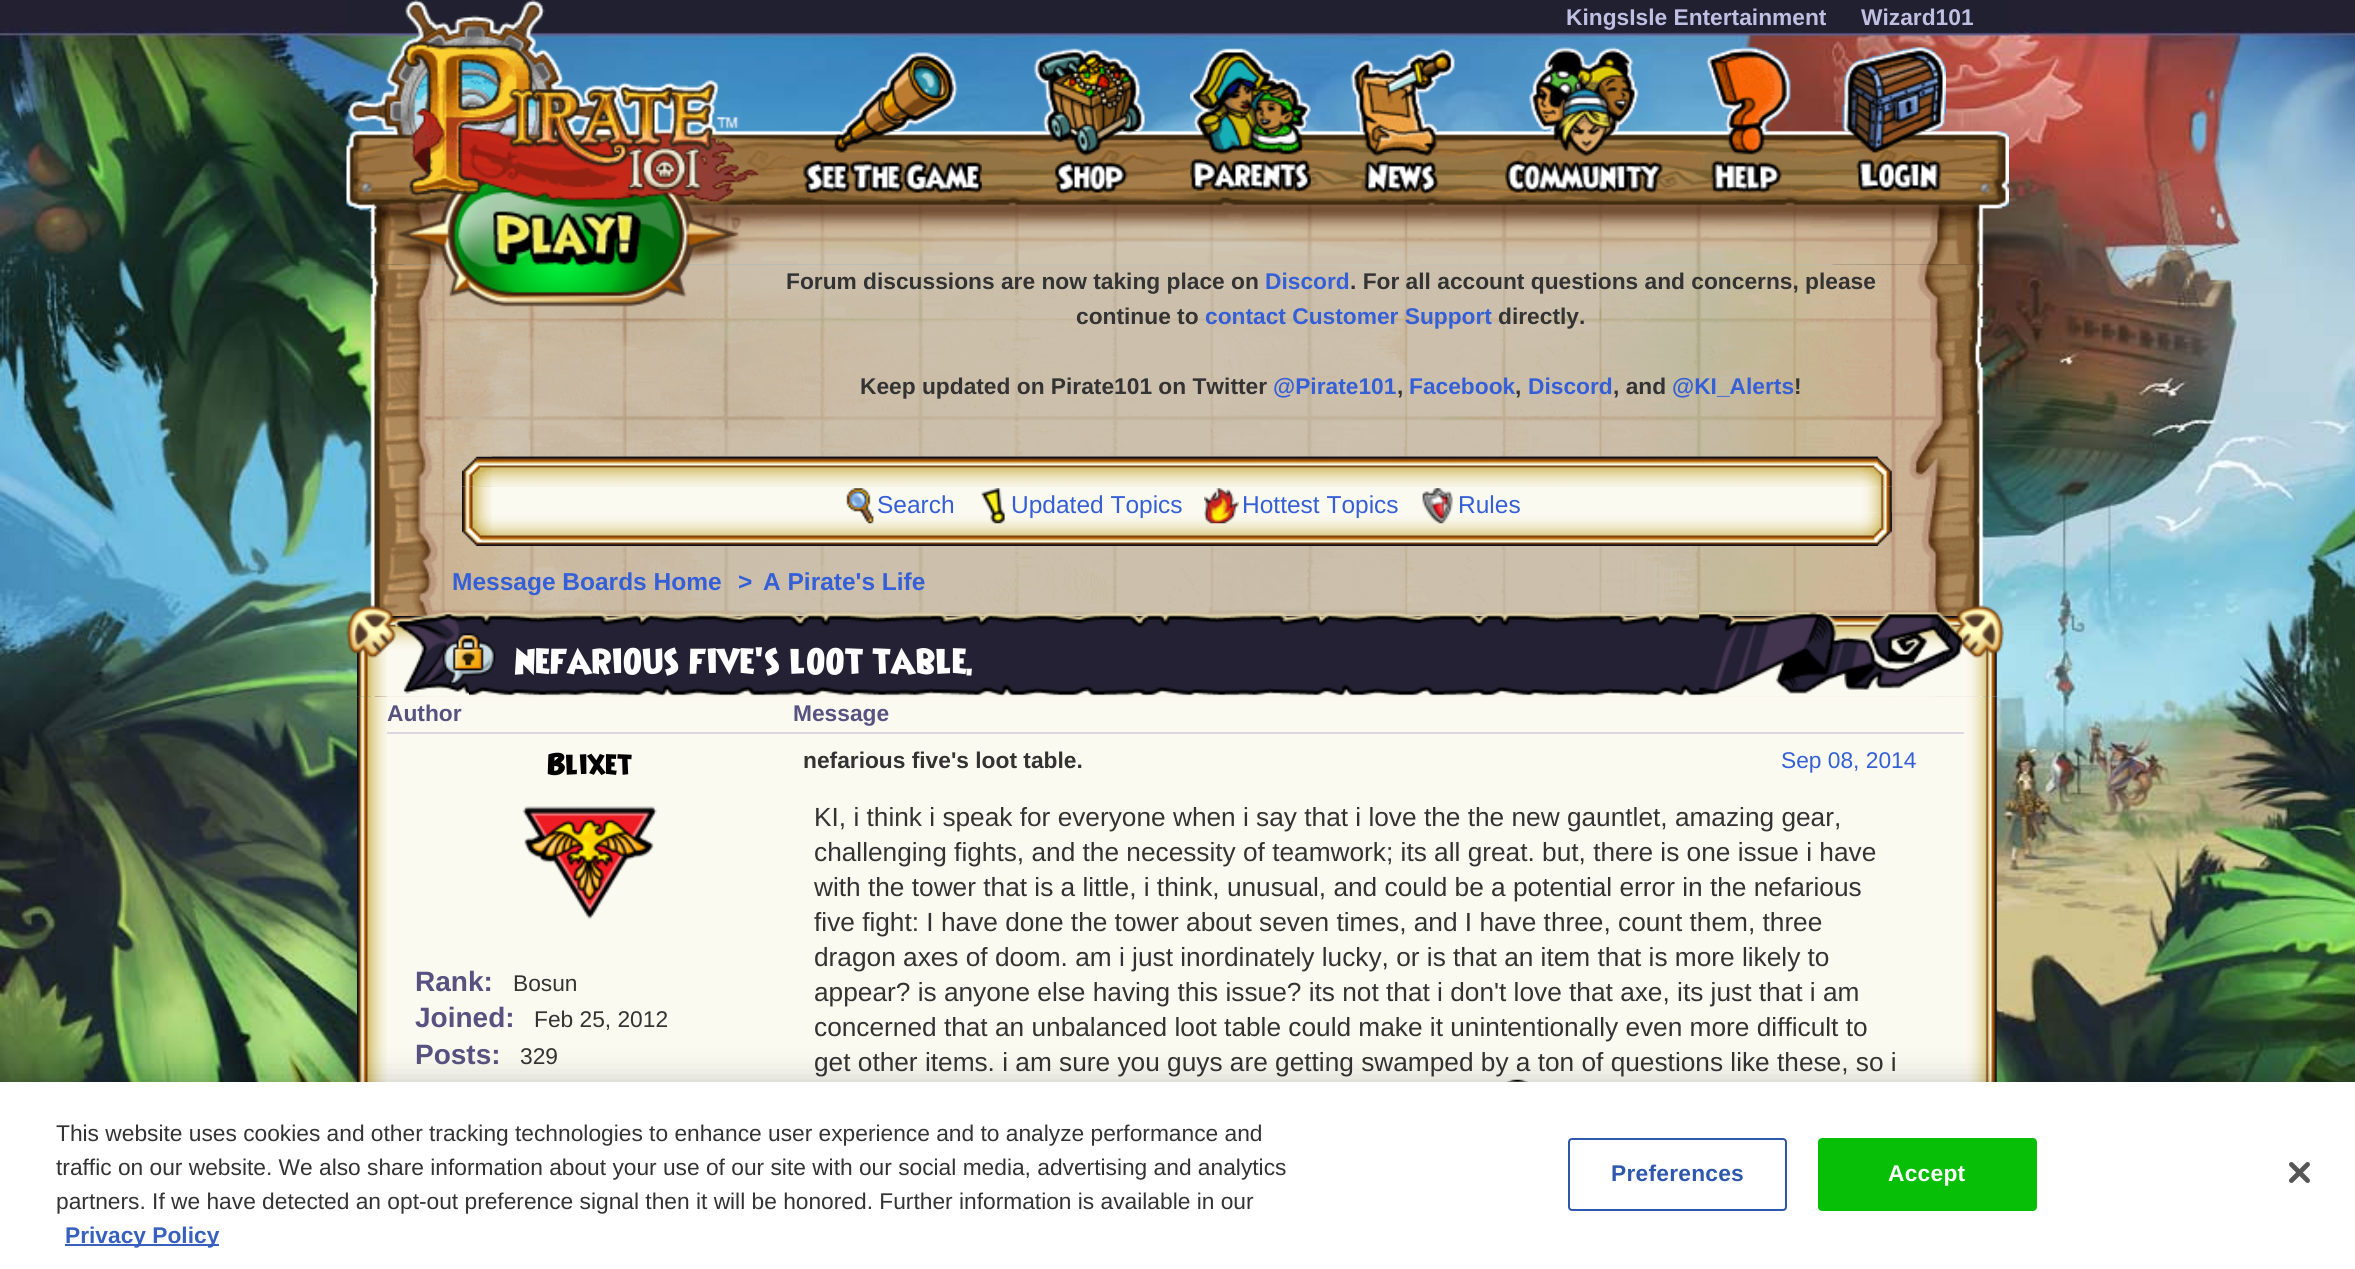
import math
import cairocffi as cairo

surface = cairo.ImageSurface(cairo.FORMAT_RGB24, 2355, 1269)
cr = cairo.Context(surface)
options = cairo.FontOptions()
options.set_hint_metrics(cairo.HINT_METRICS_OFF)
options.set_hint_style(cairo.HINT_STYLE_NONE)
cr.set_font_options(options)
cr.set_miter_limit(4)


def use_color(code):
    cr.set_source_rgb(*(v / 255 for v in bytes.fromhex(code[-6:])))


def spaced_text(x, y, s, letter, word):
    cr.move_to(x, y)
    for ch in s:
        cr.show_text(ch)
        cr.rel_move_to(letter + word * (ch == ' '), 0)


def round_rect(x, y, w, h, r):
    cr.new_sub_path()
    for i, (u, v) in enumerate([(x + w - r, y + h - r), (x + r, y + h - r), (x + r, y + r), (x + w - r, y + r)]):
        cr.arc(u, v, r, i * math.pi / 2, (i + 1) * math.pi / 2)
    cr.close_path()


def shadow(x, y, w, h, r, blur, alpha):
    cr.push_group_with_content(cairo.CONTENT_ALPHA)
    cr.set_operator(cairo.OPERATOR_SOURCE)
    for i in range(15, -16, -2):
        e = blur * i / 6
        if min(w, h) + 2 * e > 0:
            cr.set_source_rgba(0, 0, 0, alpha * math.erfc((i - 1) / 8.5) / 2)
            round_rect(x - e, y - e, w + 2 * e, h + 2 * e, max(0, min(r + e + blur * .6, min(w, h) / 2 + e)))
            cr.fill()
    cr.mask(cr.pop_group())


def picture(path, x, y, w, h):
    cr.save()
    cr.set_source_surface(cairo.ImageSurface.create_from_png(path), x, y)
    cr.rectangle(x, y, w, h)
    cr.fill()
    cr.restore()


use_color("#ffffff")
cr.paint()
picture("img1.png", 0, 0, 2355, 1082)
picture("img11.png", 370, 264, 1614, 433)
picture("img2.png", 346, 0, 1663, 265)
picture("img3.png", 803, 52, 179, 142)
picture("img4.png", 1032, 48, 114, 147)
picture("img5.png", 1190, 48, 121, 145)
picture("img6.png", 1350, 48, 105, 147)
picture("img7.png", 1505, 47, 158, 146)
picture("img8.png", 1706, 46, 85, 147)
picture("img9.png", 1842, 46, 104, 146)
picture("img10.png", 441, 187, 252, 120)
cr.select_font_face("Liberation Sans", cairo.FONT_SLANT_NORMAL, cairo.FONT_WEIGHT_BOLD)
cr.set_font_size(22.75)
use_color("#bfbfe3")
cr.move_to(1566, 25)
cr.show_text("KingsIsle Entertainment")
cr.move_to(1861, 25)
cr.show_text("Wizard101")
use_color("#333333")
cr.move_to(786, 289)
cr.show_text("Forum discussions are now taking place on")
use_color("#355fd6")
cr.move_to(1265, 289)
cr.show_text("Discord")
use_color("#333333")
cr.move_to(1350, 289)
cr.show_text(". For all account questions and concerns, please")
cr.move_to(1076, 324)
cr.show_text("continue to")
use_color("#355fd6")
cr.move_to(1205, 324)
cr.show_text("contact Customer Support")
use_color("#333333")
cr.move_to(1498, 324)
cr.show_text("directly.")
cr.move_to(860, 394)
cr.show_text("Keep updated on Pirate101 on Twitter")
use_color("#355fd6")
cr.move_to(1273, 394)
cr.show_text("@Pirate101")
use_color("#333333")
cr.move_to(1397, 394)
cr.show_text(",")
use_color("#355fd6")
cr.move_to(1409, 394)
cr.show_text("Facebook")
use_color("#333333")
cr.move_to(1515, 394)
cr.show_text(",")
use_color("#355fd6")
cr.move_to(1528, 394)
cr.show_text("Discord")
use_color("#333333")
cr.move_to(1613, 394)
cr.show_text(", and")
use_color("#355fd6")
cr.move_to(1672, 394)
cr.show_text("@KI_Alerts")
use_color("#333333")
cr.move_to(1794, 394)
cr.show_text("!")
picture("img14.png", 462, 486, 1416, 27)
picture("img15.png", 491, 486, 1401, 45)
picture("img12.png", 462, 456, 1416, 31)
picture("img13.png", 491, 456, 1401, 31)
picture("img20.png", 462, 512, 1416, 34)
picture("img21.png", 492, 512, 1400, 34)
picture("img16.png", 846, 488, 28, 36)
cr.select_font_face("Liberation Sans")
cr.set_font_size(24.5)
use_color("#355fd6")
cr.move_to(877, 513)
cr.show_text("Search")
picture("img17.png", 981, 488, 24, 36)
cr.move_to(1011, 513)
cr.show_text("Updated Topics")
picture("img18.png", 1204, 488, 35, 36)
cr.move_to(1242, 513)
cr.show_text("Hottest Topics")
picture("img19.png", 1422, 488, 31, 36)
cr.move_to(1458, 513)
cr.show_text("Rules")
cr.select_font_face("Liberation Sans", cairo.FONT_SLANT_NORMAL, cairo.FONT_WEIGHT_BOLD)
cr.move_to(452, 590)
cr.show_text("Message Boards Home")
cr.move_to(738, 590)
cr.show_text(">")
cr.move_to(763, 590)
cr.show_text("A Pirate's Life")
picture("img30.png", 357, 696, 1626, 386)
picture("img31.png", 386, 696, 1611, 386)
picture("img22.png", 357, 643, 1626, 54)
picture("img25.png", 386, 616, 1611, 81)
picture("img23.png", 346, 605, 50, 53)
picture("img24.png", 1954, 605, 50, 53)
picture("img26.png", 395, 612, 74, 82)
picture("img27.png", 469, 612, 1248, 85)
picture("img28.png", 442, 633, 54, 52)
cr.select_font_face("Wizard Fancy")
cr.set_font_size(35)
use_color("#ffffff")
cr.move_to(514, 673)
cr.show_text("nefarious five's loot table.")
picture("img29.png", 1699, 612, 263, 84)
cr.select_font_face("Liberation Sans", cairo.FONT_SLANT_NORMAL, cairo.FONT_WEIGHT_BOLD)
cr.set_font_size(22.75)
use_color("#57527f")
cr.move_to(387, 721)
cr.show_text("Author")
use_color("#ddd6e1")
cr.rectangle(387, 732, 1577, 2)
cr.fill()
use_color("#57527f")
cr.move_to(793, 721)
cr.show_text("Message")
cr.select_font_face("Wizard Fancy")
cr.set_font_size(28)
use_color("#000000")
cr.move_to(547, 774)
cr.show_text("Blixet")
picture("img32.png", 522, 806, 135, 114)
cr.select_font_face("Liberation Sans", cairo.FONT_SLANT_NORMAL, cairo.FONT_WEIGHT_BOLD)
use_color("#57527f")
cr.move_to(415, 991)
cr.show_text("Rank:")
cr.select_font_face("Liberation Sans")
cr.set_font_size(22.75)
use_color("#333333")
cr.move_to(513, 991)
cr.show_text("Bosun")
cr.select_font_face("Liberation Sans", cairo.FONT_SLANT_NORMAL, cairo.FONT_WEIGHT_BOLD)
cr.set_font_size(28)
use_color("#57527f")
cr.move_to(415, 1027)
cr.show_text("Joined:")
cr.select_font_face("Liberation Sans")
cr.set_font_size(22.75)
use_color("#333333")
cr.move_to(534, 1027)
cr.show_text("Feb 25, 2012")
cr.select_font_face("Liberation Sans", cairo.FONT_SLANT_NORMAL, cairo.FONT_WEIGHT_BOLD)
cr.set_font_size(28)
use_color("#57527f")
cr.move_to(415, 1064)
cr.show_text("Posts:")
cr.select_font_face("Liberation Sans")
cr.set_font_size(22.75)
use_color("#333333")
cr.move_to(520, 1064)
cr.show_text("329")
cr.select_font_face("Liberation Sans", cairo.FONT_SLANT_NORMAL, cairo.FONT_WEIGHT_BOLD)
cr.move_to(803, 768)
cr.show_text("nefarious five's loot table.")
cr.select_font_face("Liberation Sans")
use_color("#355fd6")
cr.move_to(1781, 768)
cr.show_text("Sep 08, 2014")
cr.set_font_size(26.25)
use_color("#333333")
cr.move_to(814, 826)
cr.show_text("KI, i think i speak for everyone when i say that i love the the new gauntlet, amazing gear,")
cr.move_to(814, 861)
cr.show_text("challenging fights, and the necessity of teamwork; its all great. but, there is one issue i have")
cr.move_to(814, 896)
cr.show_text("with the tower that is a little, i think, unusual, and could be a potential error in the nefarious")
cr.move_to(814, 931)
cr.show_text("five fight: I have done the tower about seven times, and I have three, count them, three")
cr.move_to(814, 966)
cr.show_text("dragon axes of doom. am i just inordinately lucky, or is that an item that is more likely to")
cr.move_to(814, 1001)
cr.show_text("appear? is anyone else having this issue? its not that i don't love that axe, its just that i am")
cr.move_to(814, 1036)
cr.show_text("concerned that an unbalanced loot table could make it unintentionally even more difficult to")
cr.move_to(814, 1071)
cr.show_text("get other items. i am sure you guys are getting swamped by a ton of questions like these, so i")
picture("img33.png", 1506, 1079, 22, 3)
use_color("#000000")
shadow(0, 1082, 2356, 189, 0, 16, 0.2)
use_color("#ffffff")
cr.rectangle(0, 1082, 2355, 187)
cr.fill()
cr.set_font_size(22.75)
use_color("#333333")
cr.move_to(56, 1141)
cr.show_text("This website uses cookies and other tracking technologies to enhance user experience and to analyze performance and")
cr.move_to(56, 1175)
cr.show_text("traffic on our website. We also share information about your use of our site with our social media, advertising and analytics")
cr.move_to(56, 1209)
cr.show_text("partners. If we have detected an opt-out preference signal then it will be honored. Further information is available in our")
use_color("#3860be")
cr.rectangle(65, 1244, 154, 2)
cr.fill()
cr.select_font_face("Liberation Sans", cairo.FONT_SLANT_NORMAL, cairo.FONT_WEIGHT_BOLD)
cr.move_to(65, 1243)
cr.show_text("Privacy Policy")
round_rect(1569, 1139, 217, 71, 3)
use_color("#2e58ae")
cr.stroke()
spaced_text(1611, 1181, "Preferences", 0.25, 0)
use_color("#06bf06")
round_rect(1819, 1139, 217, 71, 3)
cr.fill_preserve()
cr.stroke()
use_color("#ffffff")
spaced_text(1888, 1181, "Accept", 0.25, 0)
picture("img34.png", 2289, 1162, 21, 21)
surface.write_to_png("result.png")
